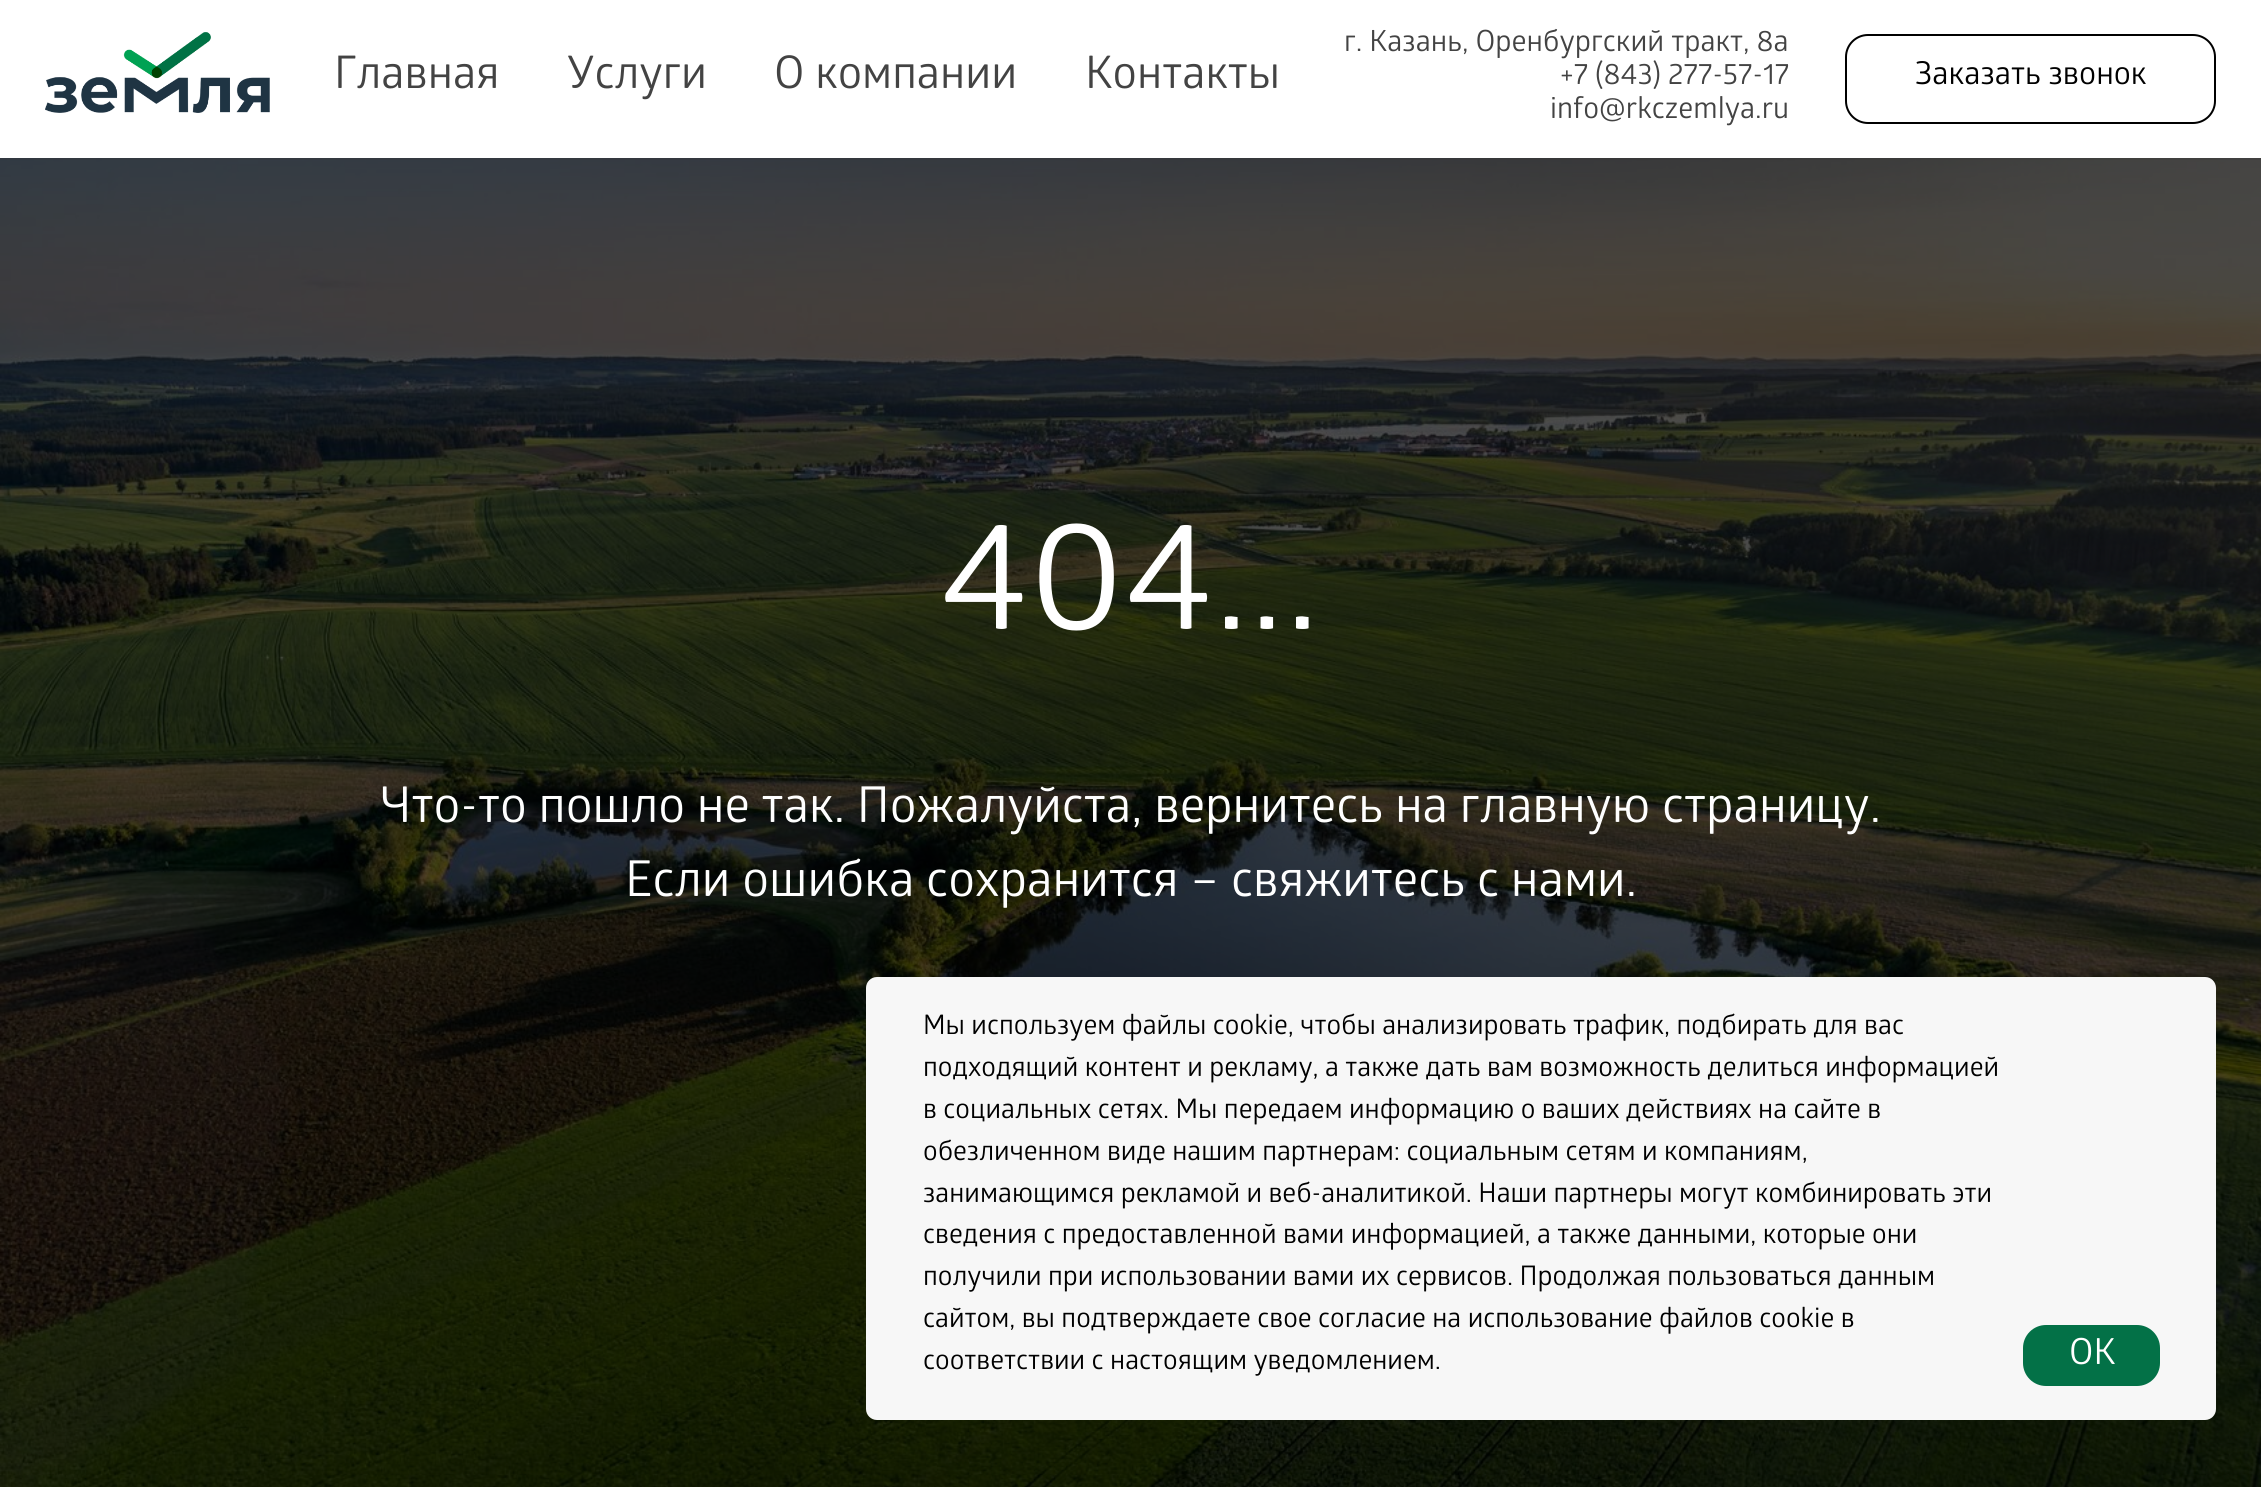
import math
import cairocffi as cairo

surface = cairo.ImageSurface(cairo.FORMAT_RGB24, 2261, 1487)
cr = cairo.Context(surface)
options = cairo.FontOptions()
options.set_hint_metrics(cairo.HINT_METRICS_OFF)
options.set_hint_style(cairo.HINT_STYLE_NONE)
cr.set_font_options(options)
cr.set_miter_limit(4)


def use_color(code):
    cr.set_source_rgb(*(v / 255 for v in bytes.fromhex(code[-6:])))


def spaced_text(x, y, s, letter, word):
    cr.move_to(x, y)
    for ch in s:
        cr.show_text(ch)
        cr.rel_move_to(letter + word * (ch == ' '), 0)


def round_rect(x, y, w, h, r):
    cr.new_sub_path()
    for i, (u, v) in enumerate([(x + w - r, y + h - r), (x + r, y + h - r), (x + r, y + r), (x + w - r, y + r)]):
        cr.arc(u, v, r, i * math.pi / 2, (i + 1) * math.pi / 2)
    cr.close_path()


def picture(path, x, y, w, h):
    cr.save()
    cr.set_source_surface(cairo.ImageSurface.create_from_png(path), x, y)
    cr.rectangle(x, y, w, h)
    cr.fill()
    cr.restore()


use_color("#ffffff")
cr.paint()
picture("img2.png", 0, 158, 2261, 1329)
cr.set_source_rgba(0.2, 0.2, 0.2, 0.2)
cr.rectangle(0, 158, 2261, 2)
cr.fill()
picture("img1.png", 45, 32, 225, 81)
cr.select_font_face("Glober")
cr.set_font_size(45)
use_color("#434343")
cr.move_to(334, 88)
cr.show_text("Главная")
cr.move_to(567, 88)
cr.show_text("Услуги")
cr.move_to(774, 88)
cr.show_text("О компании")
cr.move_to(1085, 88)
cr.show_text("Контакты")
cr.set_font_size(29.25)
cr.move_to(1344, 51)
cr.show_text("г. Казань, Оренбургский тракт, 8а")
cr.move_to(1560, 84)
cr.show_text("+7 (843) 277-57-17")
cr.move_to(1550, 118)
cr.show_text("info@rkczemlya.ru")
round_rect(1846, 35, 369, 88, 22)
use_color("#000000")
cr.stroke()
cr.set_font_size(31.5)
cr.move_to(1915, 84)
cr.show_text("Заказать звонок")
cr.set_font_size(153)
use_color("#ffffff")
spaced_text(940, 629, "404...", 1, 0)
cr.set_font_size(49.5)
cr.move_to(380, 822)
cr.show_text("Что-то пошло не так. Пожалуйста, вернитесь на главную страницу.")
cr.move_to(625, 896)
cr.show_text("Если ошибка сохранится – свяжитесь с нами.")
use_color("#f7f7f7")
round_rect(866, 977, 1350, 443, 11)
cr.fill()
cr.set_font_size(27)
use_color("#000000")
cr.move_to(923, 1034)
cr.show_text("Мы используем файлы cookie, чтобы анализировать трафик, подбирать для вас")
cr.move_to(923, 1076)
cr.show_text("подходящий контент и рекламу, а также дать вам возможность делиться информацией")
cr.move_to(923, 1118)
cr.show_text("в социальных сетях. Мы передаем информацию о ваших действиях на сайте в")
cr.move_to(923, 1160)
cr.show_text("обезличенном виде нашим партнерам: социальным сетям и компаниям,")
cr.move_to(923, 1202)
cr.show_text("занимающимся рекламой и веб-аналитикой. Наши партнеры могут комбинировать эти")
cr.move_to(923, 1243)
cr.show_text("сведения с предоставленной вами информацией, а также данными, которые они")
cr.move_to(923, 1285)
cr.show_text("получили при использовании вами их сервисов. Продолжая пользоваться данным")
cr.move_to(923, 1327)
cr.show_text("сайтом, вы подтверждаете свое согласие на использование файлов cookie в")
cr.move_to(923, 1369)
cr.show_text("соответствии с настоящим уведомлением.")
use_color("#037147")
round_rect(2023, 1325, 137, 61, 23)
cr.fill()
cr.set_font_size(36)
use_color("#ffffff")
cr.move_to(2069, 1364)
cr.show_text("OK")
surface.write_to_png("result.png")
